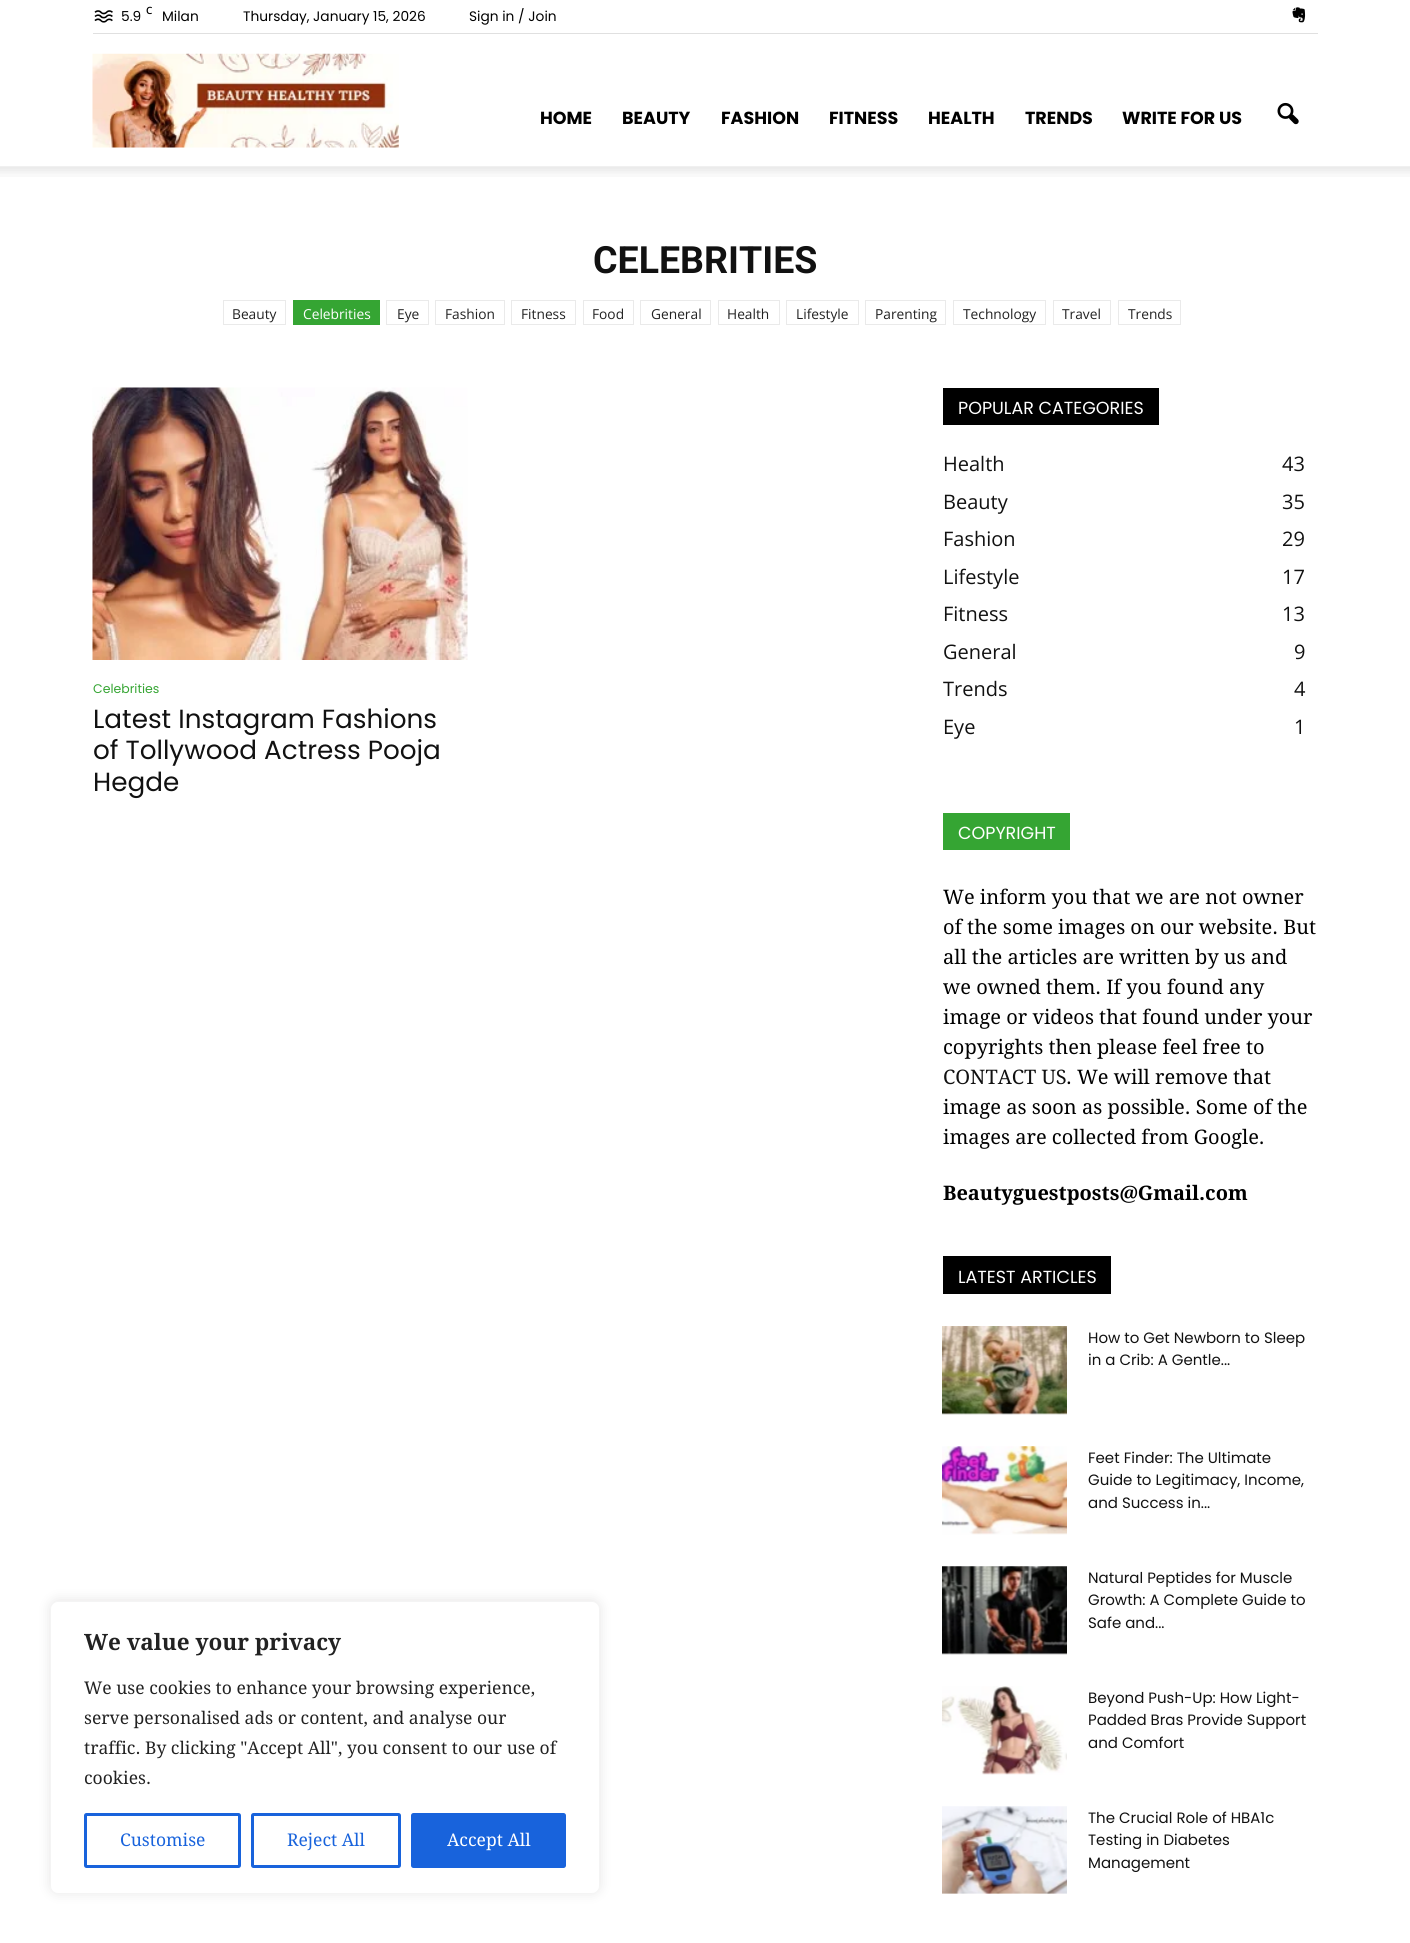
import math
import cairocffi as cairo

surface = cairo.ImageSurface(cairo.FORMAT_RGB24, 1410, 1943)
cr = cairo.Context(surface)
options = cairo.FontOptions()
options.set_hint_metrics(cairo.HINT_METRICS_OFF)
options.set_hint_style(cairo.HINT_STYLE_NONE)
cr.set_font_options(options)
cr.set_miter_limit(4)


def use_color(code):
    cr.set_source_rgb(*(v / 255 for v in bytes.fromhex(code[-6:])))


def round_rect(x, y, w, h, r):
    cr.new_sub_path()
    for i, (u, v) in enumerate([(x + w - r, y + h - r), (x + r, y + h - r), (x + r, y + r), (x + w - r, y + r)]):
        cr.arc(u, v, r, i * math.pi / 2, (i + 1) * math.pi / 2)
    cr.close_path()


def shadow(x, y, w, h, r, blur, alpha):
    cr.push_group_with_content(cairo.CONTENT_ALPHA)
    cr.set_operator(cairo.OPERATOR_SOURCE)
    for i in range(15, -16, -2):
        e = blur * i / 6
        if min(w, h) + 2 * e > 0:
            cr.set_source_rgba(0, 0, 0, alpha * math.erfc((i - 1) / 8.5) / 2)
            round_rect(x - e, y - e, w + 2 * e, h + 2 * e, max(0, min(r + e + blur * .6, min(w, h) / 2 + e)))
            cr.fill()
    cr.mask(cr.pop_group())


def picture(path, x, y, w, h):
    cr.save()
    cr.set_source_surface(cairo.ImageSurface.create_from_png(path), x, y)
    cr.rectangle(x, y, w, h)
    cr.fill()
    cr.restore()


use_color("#ffffff")
cr.paint()
use_color("#e0e0e0")
cr.rectangle(93, 33, 1225, 1)
cr.fill()
picture("img1.png", 94, 10, 19, 13)
cr.select_font_face("Poppins")
cr.set_font_size(13.75)
use_color("#000000")
cr.move_to(121, 21)
cr.show_text("5.9")
cr.select_font_face("Open Sans SemiBold")
cr.set_font_size(10)
cr.move_to(146, 14)
cr.show_text("C")
cr.select_font_face("Poppins")
cr.set_font_size(13.75)
cr.move_to(162, 21)
cr.show_text("Milan")
cr.move_to(243, 21)
cr.show_text("Thursday, January 15, 2026")
cr.move_to(469, 21)
cr.show_text("Sign in / Join")
picture("img2.png", 1292, 7, 14, 16)
picture("img3.png", 92, 53, 307, 95)
cr.select_font_face("Poppins", cairo.FONT_SLANT_NORMAL, cairo.FONT_WEIGHT_BOLD)
cr.set_font_size(17.5)
cr.move_to(540, 124)
cr.show_text("HOME")
cr.move_to(622, 124)
cr.show_text("BEAUTY")
cr.move_to(721, 124)
cr.show_text("FASHION")
cr.move_to(829, 124)
cr.show_text("FITNESS")
cr.move_to(928, 124)
cr.show_text("HEALTH")
cr.move_to(1025, 124)
cr.show_text("TRENDS")
cr.move_to(1122, 124)
cr.show_text("WRITE FOR US")
picture("img4.png", 1277, 102, 22, 23)
picture("img5.png", 0, 166, 1410, 11)
cr.select_font_face("Roboto", cairo.FONT_SLANT_NORMAL, cairo.FONT_WEIGHT_BOLD)
cr.set_font_size(37.5)
use_color("#111111")
cr.move_to(593, 273)
cr.show_text("CELEBRITIES")
cr.rectangle(223.5, 300.5, 62, 24)
use_color("#eaeaea")
cr.set_line_width(1)
cr.stroke()
cr.select_font_face("Open Sans")
cr.set_font_size(13.75)
use_color("#222222")
cr.move_to(232, 319)
cr.show_text("Beauty")
use_color("#35a533")
cr.rectangle(293, 300, 87, 25)
cr.fill()
use_color("#ffffff")
cr.move_to(303, 319)
cr.show_text("Celebrities")
cr.rectangle(386.5, 300.5, 42, 24)
use_color("#eaeaea")
cr.stroke()
use_color("#222222")
cr.move_to(397, 319)
cr.show_text("Eye")
cr.rectangle(435.5, 300.5, 69, 24)
use_color("#eaeaea")
cr.stroke()
use_color("#222222")
cr.move_to(445, 319)
cr.show_text("Fashion")
cr.rectangle(511.5, 300.5, 64, 24)
use_color("#eaeaea")
cr.stroke()
use_color("#222222")
cr.move_to(521, 319)
cr.show_text("Fitness")
cr.rectangle(583.5, 300.5, 50, 24)
use_color("#eaeaea")
cr.stroke()
use_color("#222222")
cr.move_to(592, 319)
cr.show_text("Food")
cr.rectangle(640.5, 300.5, 70, 24)
use_color("#eaeaea")
cr.stroke()
use_color("#222222")
cr.move_to(651, 319)
cr.show_text("General")
cr.rectangle(718.5, 300.5, 61, 24)
use_color("#eaeaea")
cr.stroke()
use_color("#222222")
cr.move_to(727, 319)
cr.show_text("Health")
cr.rectangle(786.5, 300.5, 72, 24)
use_color("#eaeaea")
cr.stroke()
use_color("#222222")
cr.move_to(796, 319)
cr.show_text("Lifestyle")
cr.rectangle(865.5, 300.5, 80, 24)
use_color("#eaeaea")
cr.stroke()
use_color("#222222")
cr.move_to(875, 319)
cr.show_text("Parenting")
cr.rectangle(953.5, 300.5, 92, 24)
use_color("#eaeaea")
cr.stroke()
use_color("#222222")
cr.move_to(963, 319)
cr.show_text("Technology")
cr.rectangle(1053.5, 300.5, 57, 24)
use_color("#eaeaea")
cr.stroke()
use_color("#222222")
cr.move_to(1062, 319)
cr.show_text("Travel")
cr.rectangle(1118.5, 300.5, 62, 24)
use_color("#eaeaea")
cr.stroke()
use_color("#222222")
cr.move_to(1128, 319)
cr.show_text("Trends")
picture("img6.png", 92, 387, 376, 273)
cr.select_font_face("Poppins")
cr.set_font_size(12.5)
use_color("#35a533")
cr.move_to(93, 693)
cr.show_text("Celebrities")
cr.set_font_size(26.25)
use_color("#111111")
cr.move_to(93, 728)
cr.show_text("Latest Instagram Fashions")
cr.move_to(93, 759)
cr.show_text("of Tollywood Actress Pooja")
cr.move_to(93, 791)
cr.show_text("Hegde")
use_color("#000000")
cr.rectangle(943, 388, 216, 37)
cr.fill()
cr.set_font_size(17.5)
use_color("#ffffff")
cr.move_to(958, 414)
cr.show_text("POPULAR CATEGORIES")
cr.select_font_face("Open Sans")
cr.set_font_size(20)
use_color("#111111")
cr.move_to(943, 471)
cr.show_text("Health")
cr.move_to(1282, 471)
cr.show_text("43")
cr.move_to(943, 509)
cr.show_text("Beauty")
cr.move_to(1282, 509)
cr.show_text("35")
cr.move_to(943, 546)
cr.show_text("Fashion")
cr.move_to(1282, 546)
cr.show_text("29")
cr.move_to(943, 584)
cr.show_text("Lifestyle")
cr.move_to(1282, 584)
cr.show_text("17")
cr.move_to(943, 621)
cr.show_text("Fitness")
cr.move_to(1282, 621)
cr.show_text("13")
cr.move_to(943, 659)
cr.show_text("General")
cr.move_to(1294, 659)
cr.show_text("9")
cr.save()
cr.rectangle(943, 388, 375, 377)
cr.clip()
cr.move_to(943, 696)
cr.show_text("Trends")
cr.restore()
cr.move_to(1294, 696)
cr.show_text("4")
cr.move_to(943, 734)
cr.show_text("Eye")
cr.move_to(1294, 734)
cr.show_text("1")
use_color("#35a533")
cr.rectangle(943, 813, 127, 37)
cr.fill()
cr.select_font_face("Poppins")
cr.set_font_size(17.5)
use_color("#ffffff")
cr.move_to(958, 839)
cr.show_text("COPYRIGHT")
cr.select_font_face("Droid Serif")
cr.set_font_size(20)
use_color("#000000")
cr.move_to(943, 904)
cr.show_text("We inform you that we are not owner")
cr.move_to(943, 934)
cr.show_text("of the some images on our website. But")
cr.move_to(943, 964)
cr.show_text("all the articles are written by us and")
cr.move_to(943, 994)
cr.show_text("we owned them. If you found any")
cr.move_to(943, 1024)
cr.show_text("image or videos that found under your")
cr.move_to(943, 1054)
cr.show_text("copyrights then please feel free to")
use_color("#111111")
cr.move_to(943, 1084)
cr.show_text("CONTACT US")
use_color("#000000")
cr.move_to(1066, 1084)
cr.show_text(". We will remove that")
cr.move_to(943, 1114)
cr.show_text("image as soon as possible. Some of the")
cr.move_to(943, 1144)
cr.show_text("images are collected from Google.")
cr.select_font_face("Droid Serif", cairo.FONT_SLANT_NORMAL, cairo.FONT_WEIGHT_BOLD)
cr.move_to(943, 1200)
cr.show_text("Beautyguestposts@Gmail.com")
cr.rectangle(943, 1256, 168, 38)
cr.fill()
cr.select_font_face("Poppins")
cr.set_font_size(17.5)
use_color("#ffffff")
cr.move_to(958, 1283)
cr.show_text("LATEST ARTICLES")
picture("img7.png", 942, 1326, 125, 89)
cr.set_font_size(15)
use_color("#111111")
cr.move_to(1088, 1343)
cr.show_text("How to Get Newborn to Sleep")
cr.move_to(1088, 1365)
cr.show_text("in a Crib: A Gentle...")
picture("img8.png", 942, 1446, 125, 89)
cr.move_to(1088, 1463)
cr.show_text("Feet Finder: The Ultimate")
cr.move_to(1088, 1485)
cr.show_text("Guide to Legitimacy, Income,")
cr.move_to(1088, 1508)
cr.show_text("and Success in...")
picture("img9.png", 942, 1566, 125, 89)
cr.move_to(1088, 1583)
cr.show_text("Natural Peptides for Muscle")
cr.move_to(1088, 1605)
cr.show_text("Growth: A Complete Guide to")
cr.move_to(1088, 1628)
cr.show_text("Safe and...")
picture("img10.png", 942, 1686, 125, 89)
cr.move_to(1088, 1703)
cr.show_text("Beyond Push-Up: How Light-")
cr.move_to(1088, 1725)
cr.show_text("Padded Bras Provide Support")
cr.move_to(1088, 1748)
cr.show_text("and Comfort")
picture("img11.png", 942, 1806, 125, 88)
cr.move_to(1088, 1823)
cr.show_text("The Crucial Role of HBA1c")
cr.move_to(1088, 1845)
cr.show_text("Testing in Diabetes")
cr.move_to(1088, 1868)
cr.show_text("Management")
use_color("#acabab")
shadow(50, 1600, 550, 293, 8, 6, 0.3)
use_color("#ffffff")
round_rect(50.5, 1601.5, 549, 292, 7.5)
cr.fill_preserve()
use_color("#f4f4f4")
cr.stroke()
cr.select_font_face("Droid Serif", cairo.FONT_SLANT_NORMAL, cairo.FONT_WEIGHT_BOLD)
cr.set_font_size(22.5)
use_color("#222222")
cr.move_to(84, 1650)
cr.show_text("We value your privacy")
cr.select_font_face("Droid Serif")
cr.set_font_size(17.5)
cr.move_to(84, 1694)
cr.show_text("We use cookies to enhance your browsing experience,")
cr.move_to(84, 1724)
cr.show_text("serve personalised ads or content, and analyse our")
cr.move_to(84, 1754)
cr.show_text("traffic. By clicking \"Accept All\", you consent to our use of")
cr.move_to(84, 1784)
cr.show_text("cookies.")
round_rect(85.5, 1814.5, 154, 52, 1)
use_color("#1863dc")
cr.set_line_width(3)
cr.stroke()
cr.move_to(120, 1846)
cr.show_text("Customise")
round_rect(252.5, 1814.5, 147, 52, 1)
cr.stroke()
cr.move_to(287, 1846)
cr.show_text("Reject All")
round_rect(412.5, 1814.5, 152, 52, 1)
cr.fill_preserve()
cr.stroke()
use_color("#ffffff")
cr.move_to(447, 1846)
cr.show_text("Accept All")
surface.write_to_png("result.png")
